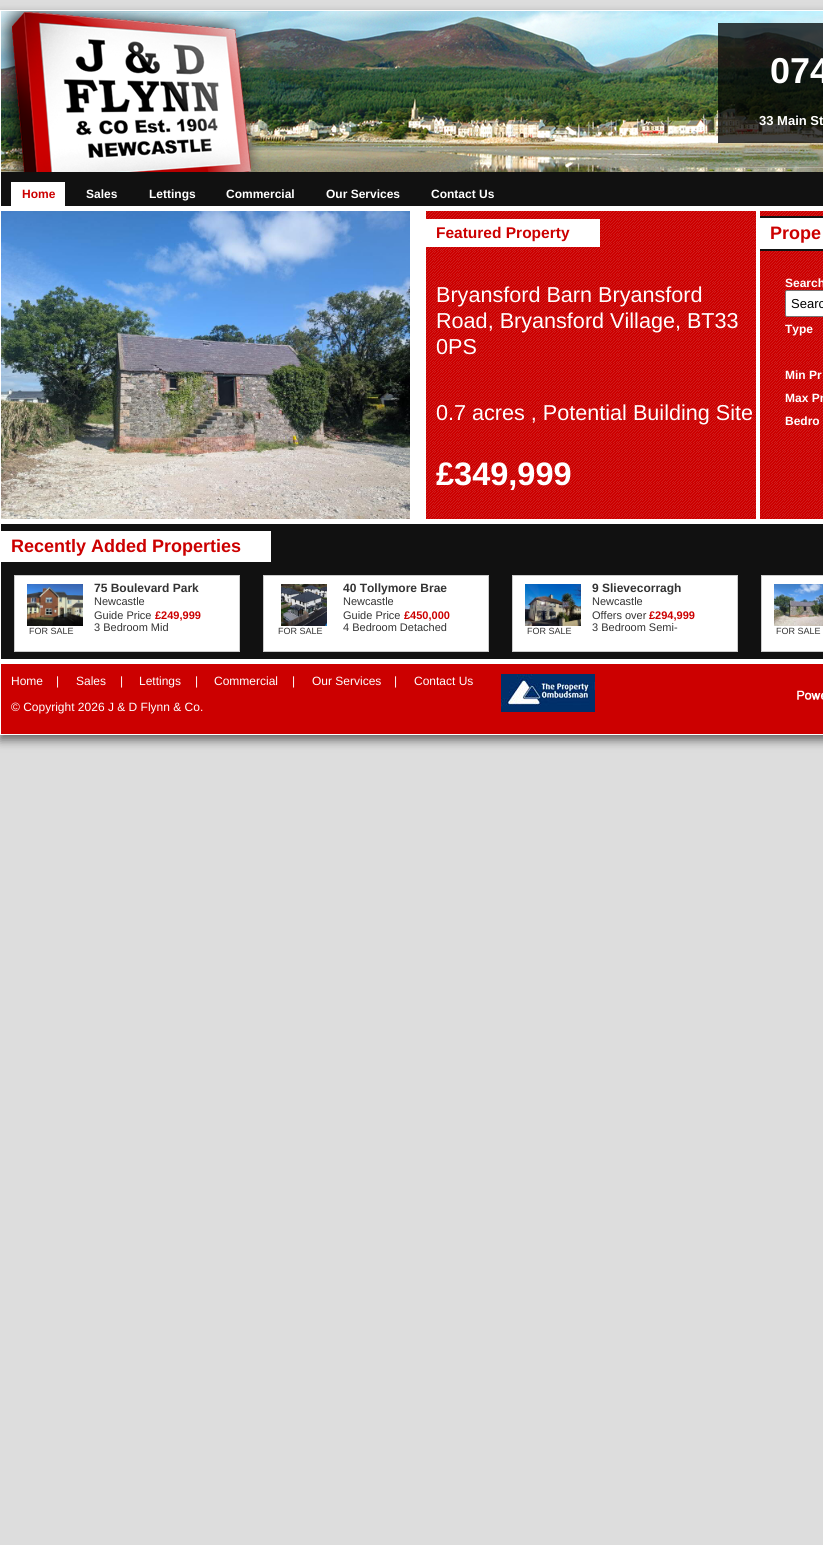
import math
import cairocffi as cairo

surface = cairo.ImageSurface(cairo.FORMAT_RGB24, 823, 1545)
cr = cairo.Context(surface)
options = cairo.FontOptions()
options.set_hint_metrics(cairo.HINT_METRICS_OFF)
options.set_hint_style(cairo.HINT_STYLE_NONE)
cr.set_font_options(options)
cr.set_miter_limit(4)


def use_color(code):
    cr.set_source_rgb(*(v / 255 for v in bytes.fromhex(code[-6:])))


def round_rect(x, y, w, h, r):
    cr.new_sub_path()
    for i, (u, v) in enumerate([(x + w - r, y + h - r), (x + r, y + h - r), (x + r, y + r), (x + w - r, y + r)]):
        cr.arc(u, v, r, i * math.pi / 2, (i + 1) * math.pi / 2)
    cr.close_path()


def shadow(x, y, w, h, r, blur, alpha):
    cr.push_group_with_content(cairo.CONTENT_ALPHA)
    cr.set_operator(cairo.OPERATOR_SOURCE)
    for i in range(15, -16, -2):
        e = blur * i / 6
        if min(w, h) + 2 * e > 0:
            cr.set_source_rgba(0, 0, 0, alpha * math.erfc((i - 1) / 8.5) / 2)
            round_rect(x - e, y - e, w + 2 * e, h + 2 * e, max(0, min(r + e + blur * .6, min(w, h) / 2 + e)))
            cr.fill()
    cr.mask(cr.pop_group())


def picture(path, x, y, w, h):
    cr.save()
    cr.set_source_surface(cairo.ImageSurface.create_from_png(path), x, y)
    cr.rectangle(x, y, w, h)
    cr.fill()
    cr.restore()


use_color("#dddddd")
cr.paint()
use_color("#666666")
shadow(0, 15, 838, 725, 0, 5, 1)
use_color("#ffffff")
cr.rectangle(0, 10, 823, 725)
cr.fill()
picture("img1.png", 1, 11, 822, 161)
cr.select_font_face("Liberation Sans", cairo.FONT_SLANT_NORMAL, cairo.FONT_WEIGHT_BOLD)
cr.set_font_size(36)
cr.move_to(770, 83)
cr.show_text("074")
cr.set_font_size(13)
cr.move_to(759, 125)
cr.show_text("33 Main St")
use_color("#111111")
cr.rectangle(1, 172, 822, 34)
cr.fill()
use_color("#ffffff")
cr.rectangle(11, 182, 54, 24)
cr.fill()
cr.set_font_size(12)
use_color("#cc0000")
cr.move_to(22, 198)
cr.show_text("Home")
use_color("#ffffff")
cr.move_to(86, 198)
cr.show_text("Sales")
cr.move_to(149, 198)
cr.show_text("Lettings")
cr.move_to(226, 198)
cr.show_text("Commercial")
cr.move_to(326, 198)
cr.show_text("Our Services")
cr.move_to(431, 198)
cr.show_text("Contact Us")
picture("img2.png", 1, 211, 409, 308)
picture("img3.png", 426, 211, 330, 308)
cr.rectangle(426, 219, 174, 28)
cr.fill()
cr.set_font_size(15.5)
use_color("#cc0000")
cr.move_to(436, 238)
cr.show_text("Featured Property")
cr.select_font_face("Liberation Sans")
cr.set_font_size(21.6)
use_color("#ffffff")
cr.move_to(436, 302)
cr.show_text("Bryansford Barn Bryansford")
cr.move_to(436, 328)
cr.show_text("Road, Bryansford Village, BT33")
cr.move_to(436, 354)
cr.show_text("0PS")
cr.move_to(436, 420)
cr.show_text("0.7 acres , Potential Building Site")
cr.select_font_face("Liberation Sans", cairo.FONT_SLANT_NORMAL, cairo.FONT_WEIGHT_BOLD)
cr.set_font_size(32.5)
cr.move_to(436, 485)
cr.show_text("£349,999")
picture("img4.png", 760, 211, 63, 308)
cr.rectangle(760, 218, 63, 31)
cr.fill()
use_color("#111111")
cr.rectangle(760, 216, 63, 2)
cr.fill()
cr.rectangle(760, 249, 63, 2)
cr.fill()
cr.set_font_size(18)
use_color("#cc0000")
cr.move_to(770, 239)
cr.show_text("Prope")
cr.set_font_size(12)
use_color("#ffffff")
cr.move_to(785, 287)
cr.show_text("Search")
round_rect(785.5, 290.5, 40, 26, 1.5)
cr.fill_preserve()
use_color("#767676")
cr.set_line_width(1)
cr.stroke()
cr.select_font_face("Liberation Sans")
cr.set_font_size(13)
use_color("#000000")
cr.move_to(791, 308)
cr.show_text("Searc")
cr.select_font_face("Liberation Sans", cairo.FONT_SLANT_NORMAL, cairo.FONT_WEIGHT_BOLD)
cr.set_font_size(12)
use_color("#ffffff")
cr.move_to(785, 333)
cr.show_text("Type")
cr.move_to(785, 379)
cr.show_text("Min Pr")
cr.move_to(785, 402)
cr.show_text("Max Pr")
cr.move_to(785, 425)
cr.show_text("Bedro")
cr.rectangle(822, 451, 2, 32)
use_color("#cc0000")
cr.set_line_width(2)
cr.stroke()
use_color("#111111")
cr.rectangle(1, 524, 822, 135)
cr.fill()
use_color("#ffffff")
cr.rectangle(1, 531, 270, 31)
cr.fill()
cr.set_font_size(18)
use_color("#cc0000")
cr.move_to(11, 552)
cr.show_text("Recently Added Properties")
use_color("#ffffff")
cr.rectangle(14.5, 575.5, 225, 76)
cr.fill_preserve()
use_color("#cccccc")
cr.set_line_width(1)
cr.stroke()
picture("img5.png", 27, 584, 56, 42)
cr.select_font_face("Liberation Sans")
cr.set_font_size(9)
use_color("#333333")
cr.move_to(29, 634)
cr.show_text("FOR SALE")
cr.select_font_face("Liberation Sans", cairo.FONT_SLANT_NORMAL, cairo.FONT_WEIGHT_BOLD)
cr.set_font_size(12)
cr.move_to(94, 592)
cr.show_text("75 Boulevard Park")
cr.select_font_face("Liberation Sans")
cr.set_font_size(11)
cr.move_to(94, 605)
cr.show_text("Newcastle")
cr.move_to(94, 619)
cr.show_text("Guide Price")
cr.select_font_face("Liberation Sans", cairo.FONT_SLANT_NORMAL, cairo.FONT_WEIGHT_BOLD)
use_color("#cc0000")
cr.move_to(155, 619)
cr.show_text("£249,999")
cr.select_font_face("Liberation Sans")
use_color("#333333")
cr.move_to(94, 631)
cr.show_text("3 Bedroom Mid")
use_color("#ffffff")
cr.rectangle(263.5, 575.5, 225, 76)
cr.fill_preserve()
use_color("#cccccc")
cr.stroke()
picture("img6.png", 281, 584, 46, 42)
cr.set_font_size(9)
use_color("#333333")
cr.move_to(278, 634)
cr.show_text("FOR SALE")
cr.select_font_face("Liberation Sans", cairo.FONT_SLANT_NORMAL, cairo.FONT_WEIGHT_BOLD)
cr.set_font_size(12)
cr.move_to(343, 592)
cr.show_text("40 Tollymore Brae")
cr.select_font_face("Liberation Sans")
cr.set_font_size(11)
cr.move_to(343, 605)
cr.show_text("Newcastle")
cr.move_to(343, 619)
cr.show_text("Guide Price")
cr.select_font_face("Liberation Sans", cairo.FONT_SLANT_NORMAL, cairo.FONT_WEIGHT_BOLD)
use_color("#cc0000")
cr.move_to(404, 619)
cr.show_text("£450,000")
cr.select_font_face("Liberation Sans")
use_color("#333333")
cr.move_to(343, 631)
cr.show_text("4 Bedroom Detached")
use_color("#ffffff")
cr.rectangle(512.5, 575.5, 225, 76)
cr.fill_preserve()
use_color("#cccccc")
cr.stroke()
picture("img7.png", 525, 584, 56, 42)
cr.set_font_size(9)
use_color("#333333")
cr.move_to(527, 634)
cr.show_text("FOR SALE")
cr.select_font_face("Liberation Sans", cairo.FONT_SLANT_NORMAL, cairo.FONT_WEIGHT_BOLD)
cr.set_font_size(12)
cr.move_to(592, 592)
cr.show_text("9 Slievecorragh")
cr.select_font_face("Liberation Sans")
cr.set_font_size(11)
cr.move_to(592, 605)
cr.show_text("Newcastle")
cr.move_to(592, 619)
cr.show_text("Offers over")
cr.select_font_face("Liberation Sans", cairo.FONT_SLANT_NORMAL, cairo.FONT_WEIGHT_BOLD)
use_color("#cc0000")
cr.move_to(649, 619)
cr.show_text("£294,999")
cr.select_font_face("Liberation Sans")
use_color("#333333")
cr.move_to(592, 631)
cr.show_text("3 Bedroom Semi-")
use_color("#ffffff")
cr.rectangle(761.5, 575.5, 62, 76)
cr.fill_preserve()
use_color("#cccccc")
cr.stroke()
picture("img8.png", 774, 584, 49, 42)
cr.set_font_size(9)
use_color("#333333")
cr.move_to(776, 634)
cr.show_text("FOR SALE")
use_color("#cc0000")
cr.rectangle(1, 664, 822, 70)
cr.fill()
cr.set_font_size(12)
use_color("#ffffff")
cr.move_to(11, 685)
cr.show_text("Home")
cr.move_to(56, 685)
cr.show_text("|")
cr.move_to(76, 685)
cr.show_text("Sales")
cr.move_to(120, 685)
cr.show_text("|")
cr.move_to(139, 685)
cr.show_text("Lettings")
cr.move_to(195, 685)
cr.show_text("|")
cr.move_to(214, 685)
cr.show_text("Commercial")
cr.move_to(292, 685)
cr.show_text("|")
cr.move_to(312, 685)
cr.show_text("Our Services")
cr.move_to(394, 685)
cr.show_text("|")
cr.move_to(414, 685)
cr.show_text("Contact Us")
cr.move_to(11, 711)
cr.show_text("© Copyright 2026 J & D Flynn & Co.")
picture("img9.png", 501, 674, 94, 38)
picture("img10.png", 797, 690, 26, 10)
surface.write_to_png("result.png")
